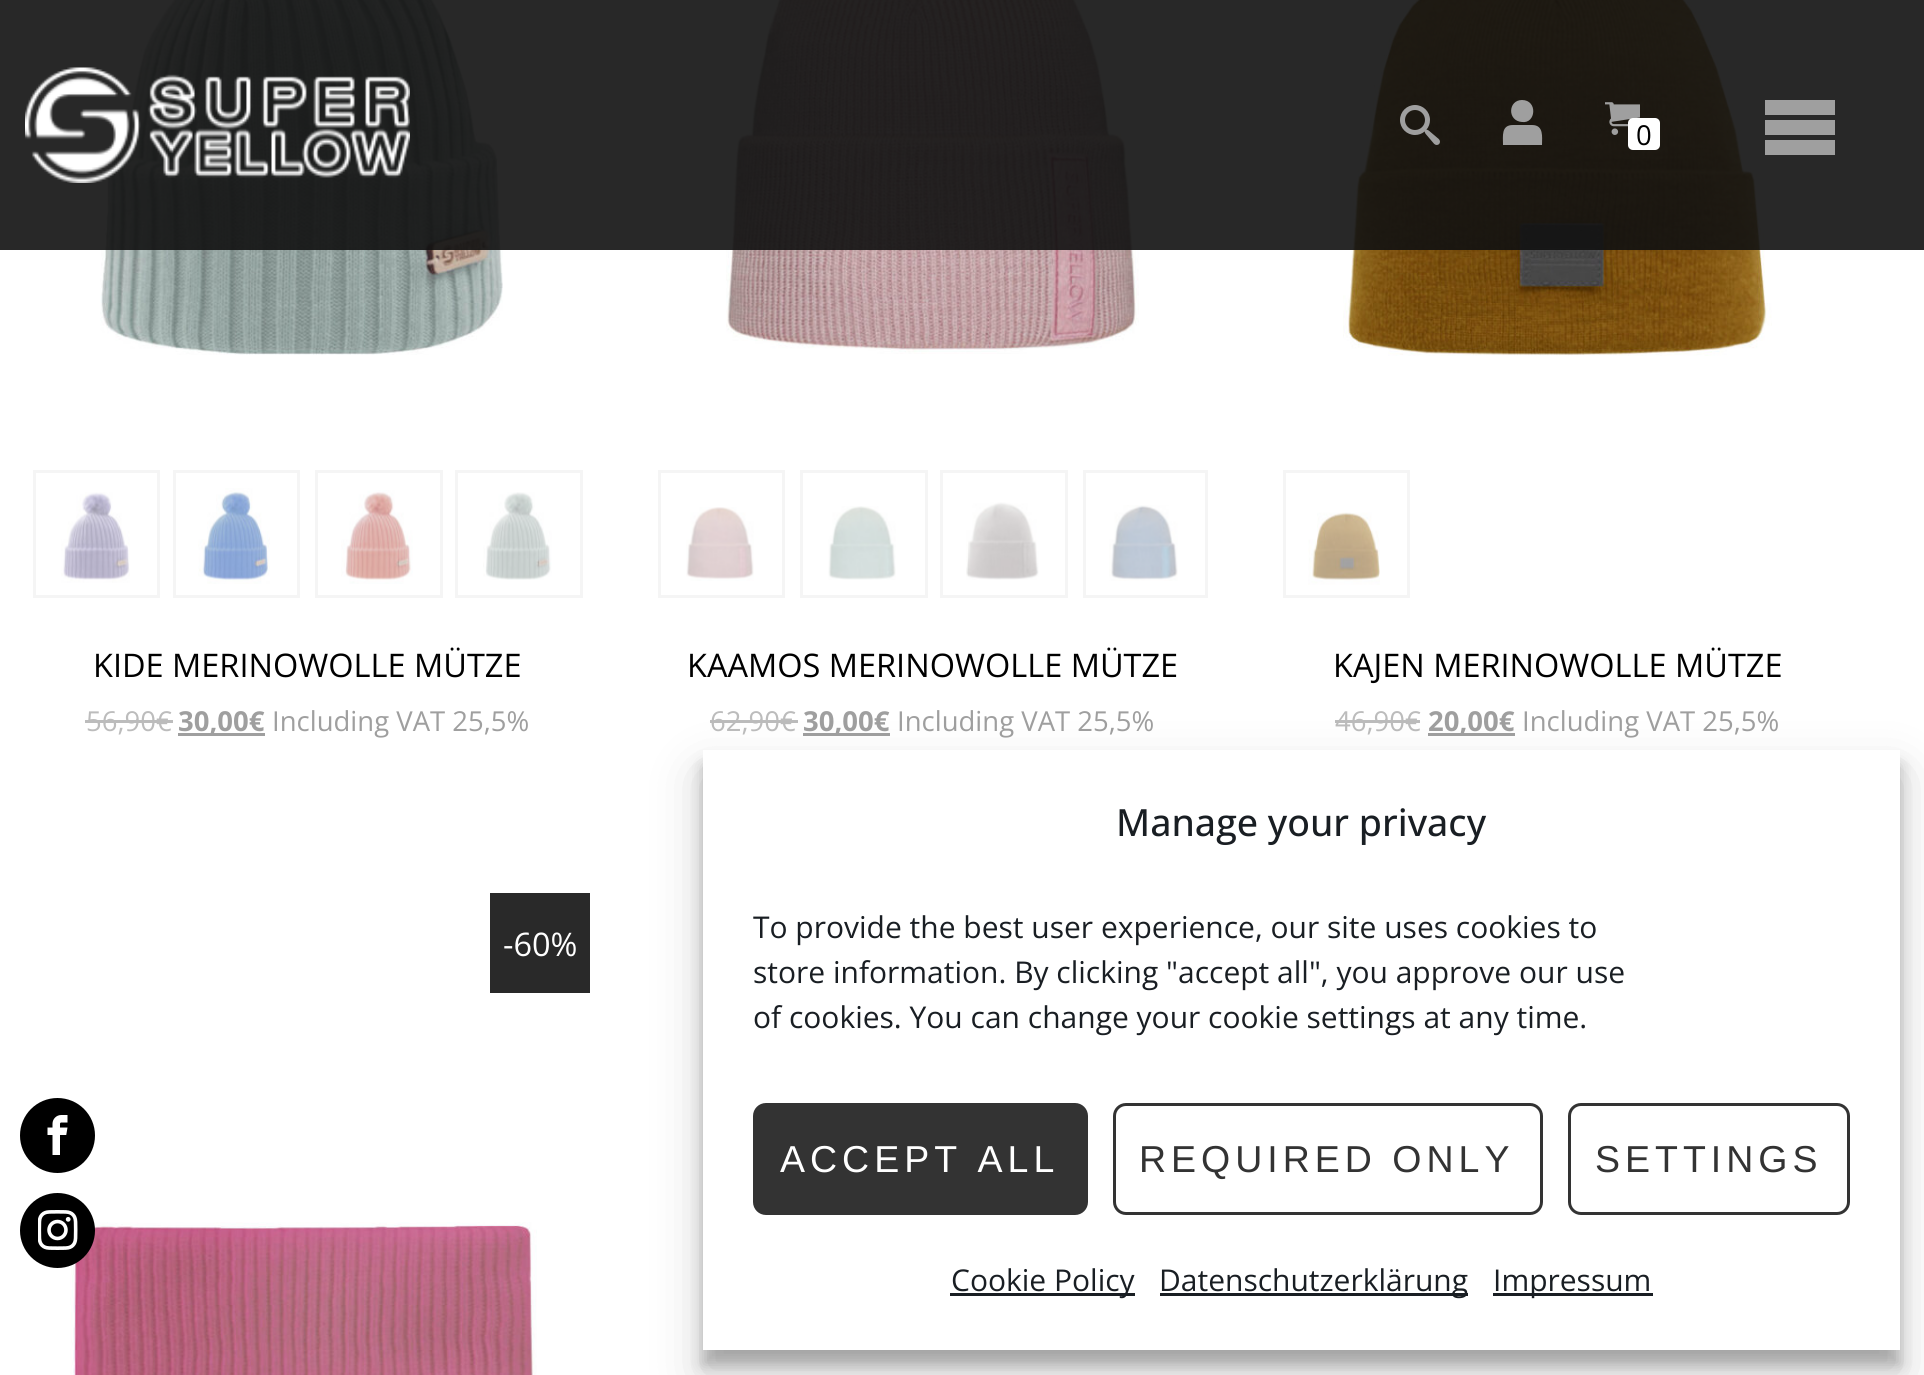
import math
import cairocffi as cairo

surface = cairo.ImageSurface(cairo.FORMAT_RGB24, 1924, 1375)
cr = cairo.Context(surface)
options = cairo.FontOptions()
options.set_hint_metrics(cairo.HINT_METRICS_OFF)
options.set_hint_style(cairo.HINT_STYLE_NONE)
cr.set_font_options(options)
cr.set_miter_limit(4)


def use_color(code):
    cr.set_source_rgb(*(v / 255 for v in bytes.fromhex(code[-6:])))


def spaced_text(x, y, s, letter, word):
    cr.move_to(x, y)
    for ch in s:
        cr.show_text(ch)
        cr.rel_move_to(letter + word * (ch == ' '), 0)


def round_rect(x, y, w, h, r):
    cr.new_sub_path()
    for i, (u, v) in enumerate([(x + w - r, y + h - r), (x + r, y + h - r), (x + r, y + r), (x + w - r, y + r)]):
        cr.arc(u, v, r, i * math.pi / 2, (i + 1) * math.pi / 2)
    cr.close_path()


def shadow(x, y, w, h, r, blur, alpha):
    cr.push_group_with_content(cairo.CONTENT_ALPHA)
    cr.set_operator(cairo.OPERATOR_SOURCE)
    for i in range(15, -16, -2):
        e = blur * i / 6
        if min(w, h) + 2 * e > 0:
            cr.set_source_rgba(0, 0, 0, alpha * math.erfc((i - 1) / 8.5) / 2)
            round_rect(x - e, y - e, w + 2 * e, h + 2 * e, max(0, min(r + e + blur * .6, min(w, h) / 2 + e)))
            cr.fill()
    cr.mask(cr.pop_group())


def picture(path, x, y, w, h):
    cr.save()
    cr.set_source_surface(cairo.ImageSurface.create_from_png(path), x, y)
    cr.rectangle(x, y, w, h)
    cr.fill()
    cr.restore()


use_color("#ffffff")
cr.paint()
picture("img4.png", 100, 0, 403, 355)
picture("img9.png", 726, 0, 413, 354)
picture("img14.png", 1343, 0, 429, 356)
cr.set_source_rgba(0.067, 0.067, 0.067, 0.9)
cr.rectangle(0, 0, 1924, 250)
cr.fill()
picture("img1.png", 25, 67, 385, 116)
picture("img2.png", 1400, 105, 40, 40)
use_color("#9f9f9f")
cr.new_path()
cr.move_to(1532, 125)
cr.curve_to(1544, 125, 1542, 137, 1542, 145)
cr.line_to(1503, 145)
cr.curve_to(1503, 136, 1501, 125, 1513, 125)
cr.close_path()
cr.move_to(1522, 100)
cr.curve_to(1538, 100, 1536, 124, 1522, 122)
cr.curve_to(1507, 121, 1508, 100, 1522, 100)
cr.close_path()
cr.fill()
picture("img3.png", 1605, 102, 35, 33)
use_color("#ffffff")
round_rect(1628, 118, 32, 32, 5)
cr.fill()
cr.select_font_face("Open Sans")
cr.set_font_size(27.5)
use_color("#000000")
cr.move_to(1636, 145)
cr.show_text("0")
use_color("#9f9f9f")
cr.new_path()
cr.move_to(1765, 100)
cr.line_to(1835, 100)
cr.line_to(1835, 115)
cr.line_to(1765, 115)
cr.close_path()
cr.move_to(1765, 120)
cr.line_to(1835, 120)
cr.line_to(1835, 135)
cr.line_to(1765, 135)
cr.close_path()
cr.move_to(1765, 140)
cr.line_to(1835, 140)
cr.line_to(1835, 155)
cr.line_to(1765, 155)
cr.close_path()
cr.fill()
cr.rectangle(34.5, 471.5, 124, 125)
use_color("#f5f5f5")
cr.set_line_width(3)
cr.stroke()
picture("img5.png", 61, 492, 69, 91)
cr.rectangle(174.5, 471.5, 124, 125)
cr.stroke()
picture("img6.png", 198, 488, 72, 96)
cr.rectangle(316.5, 471.5, 125, 125)
cr.stroke()
picture("img7.png", 341, 490, 72, 94)
cr.rectangle(456.5, 471.5, 125, 125)
cr.stroke()
picture("img8.png", 483, 492, 69, 88)
cr.set_font_size(32.5)
use_color("#000000")
cr.move_to(93, 677)
cr.show_text("KIDE MERINOWOLLE MÜTZE")
cr.set_font_size(27.5)
use_color("#bcbcbc")
cr.move_to(86, 731)
cr.show_text("56,90€")
cr.rectangle(85, 720, 88, 3)
cr.fill()
use_color("#9f9f9f")
cr.rectangle(178, 733, 87, 3)
cr.fill()
cr.select_font_face("Open Sans", cairo.FONT_SLANT_NORMAL, cairo.FONT_WEIGHT_BOLD)
cr.move_to(178, 731)
cr.show_text("30,00€")
cr.select_font_face("Open Sans")
cr.move_to(272, 731)
cr.show_text("Including VAT 25,5%")
cr.rectangle(659.5, 471.5, 124, 125)
use_color("#f5f5f5")
cr.stroke()
picture("img10.png", 686, 507, 68, 74)
cr.rectangle(801.5, 471.5, 125, 125)
cr.stroke()
picture("img11.png", 828, 506, 68, 74)
cr.rectangle(941.5, 471.5, 125, 125)
cr.stroke()
picture("img12.png", 966, 502, 73, 78)
cr.rectangle(1084.5, 471.5, 122, 125)
cr.stroke()
picture("img13.png", 1109, 505, 69, 76)
cr.set_font_size(32.5)
use_color("#000000")
cr.move_to(687, 677)
cr.show_text("KAAMOS MERINOWOLLE MÜTZE")
cr.set_font_size(27.5)
use_color("#bcbcbc")
cr.move_to(710, 731)
cr.show_text("62,90€")
cr.rectangle(710, 720, 88, 3)
cr.fill()
use_color("#9f9f9f")
cr.rectangle(803, 733, 87, 3)
cr.fill()
cr.select_font_face("Open Sans", cairo.FONT_SLANT_NORMAL, cairo.FONT_WEIGHT_BOLD)
cr.move_to(803, 731)
cr.show_text("30,00€")
cr.select_font_face("Open Sans")
cr.move_to(897, 731)
cr.show_text("Including VAT 25,5%")
cr.rectangle(1284.5, 471.5, 124, 125)
use_color("#f5f5f5")
cr.stroke()
picture("img15.png", 1308, 512, 72, 73)
cr.set_font_size(32.5)
use_color("#000000")
cr.move_to(1333, 677)
cr.show_text("KAJEN MERINOWOLLE MÜTZE")
cr.set_font_size(27.5)
use_color("#bcbcbc")
cr.move_to(1335, 731)
cr.show_text("46,90€")
cr.rectangle(1335, 720, 85, 3)
cr.fill()
use_color("#9f9f9f")
cr.rectangle(1428, 733, 87, 3)
cr.fill()
cr.select_font_face("Open Sans", cairo.FONT_SLANT_NORMAL, cairo.FONT_WEIGHT_BOLD)
cr.move_to(1428, 731)
cr.show_text("20,00€")
cr.select_font_face("Open Sans")
cr.move_to(1522, 731)
cr.show_text("Including VAT 25,5%")
use_color("#292929")
cr.rectangle(490, 893, 100, 100)
cr.fill()
cr.set_font_size(32.5)
use_color("#ffffff")
cr.move_to(503, 956)
cr.show_text("-60%")
picture("img16.png", 70, 1222, 467, 153)
use_color("#000000")
cr.arc(57.5, 1135.5, 37.5, 0, 2 * math.pi)
cr.fill()
picture("img17.png", 47, 1115, 21, 40)
cr.arc(57.5, 1230.5, 37.5, 0, 2 * math.pi)
cr.fill()
picture("img18.png", 38, 1210, 40, 40)
use_color("#000000")
shadow(703, 765, 1197, 600, 0, 7.5, 0.23)
shadow(703, 775, 1197, 600, 0, 25, 0.19)
use_color("#ffffff")
cr.rectangle(703, 750, 1197, 600)
cr.fill()
cr.select_font_face("Open Sans Medium")
cr.set_font_size(37.5)
use_color("#191e23")
cr.move_to(1116, 836)
cr.show_text("Manage your privacy")
cr.select_font_face("Open Sans")
cr.set_font_size(30)
cr.move_to(753, 938)
cr.show_text("To provide the best user experience, our site uses cookies to")
cr.move_to(753, 983)
cr.show_text("store information. By clicking \"accept all\", you approve our use")
cr.move_to(753, 1028)
cr.show_text("of cookies. You can change your cookie settings at any time.")
use_color("#333333")
round_rect(754.5, 1104.5, 332, 109, 11.5)
cr.fill_preserve()
cr.stroke()
cr.select_font_face("Liberation Sans")
cr.set_font_size(37.5)
use_color("#ffffff")
spaced_text(780, 1172, "ACCEPT ALL", 5, 0)
round_rect(1114.5, 1104.5, 427, 109, 11.5)
use_color("#333333")
cr.stroke()
spaced_text(1139, 1172, "REQUIRED ONLY", 5, 0)
round_rect(1569.5, 1104.5, 279, 109, 11.5)
cr.stroke()
spaced_text(1595, 1172, "SETTINGS", 5, 0)
use_color("#191e23")
cr.rectangle(950, 1293, 185, 3)
cr.fill()
cr.select_font_face("Open Sans")
cr.set_font_size(30)
cr.move_to(951, 1291)
cr.show_text("Cookie Policy")
cr.rectangle(1160, 1293, 308, 3)
cr.fill()
cr.move_to(1159, 1291)
cr.show_text("Datenschutzerklärung")
cr.rectangle(1493, 1293, 160, 3)
cr.fill()
cr.move_to(1493, 1291)
cr.show_text("Impressum")
surface.write_to_png("result.png")
